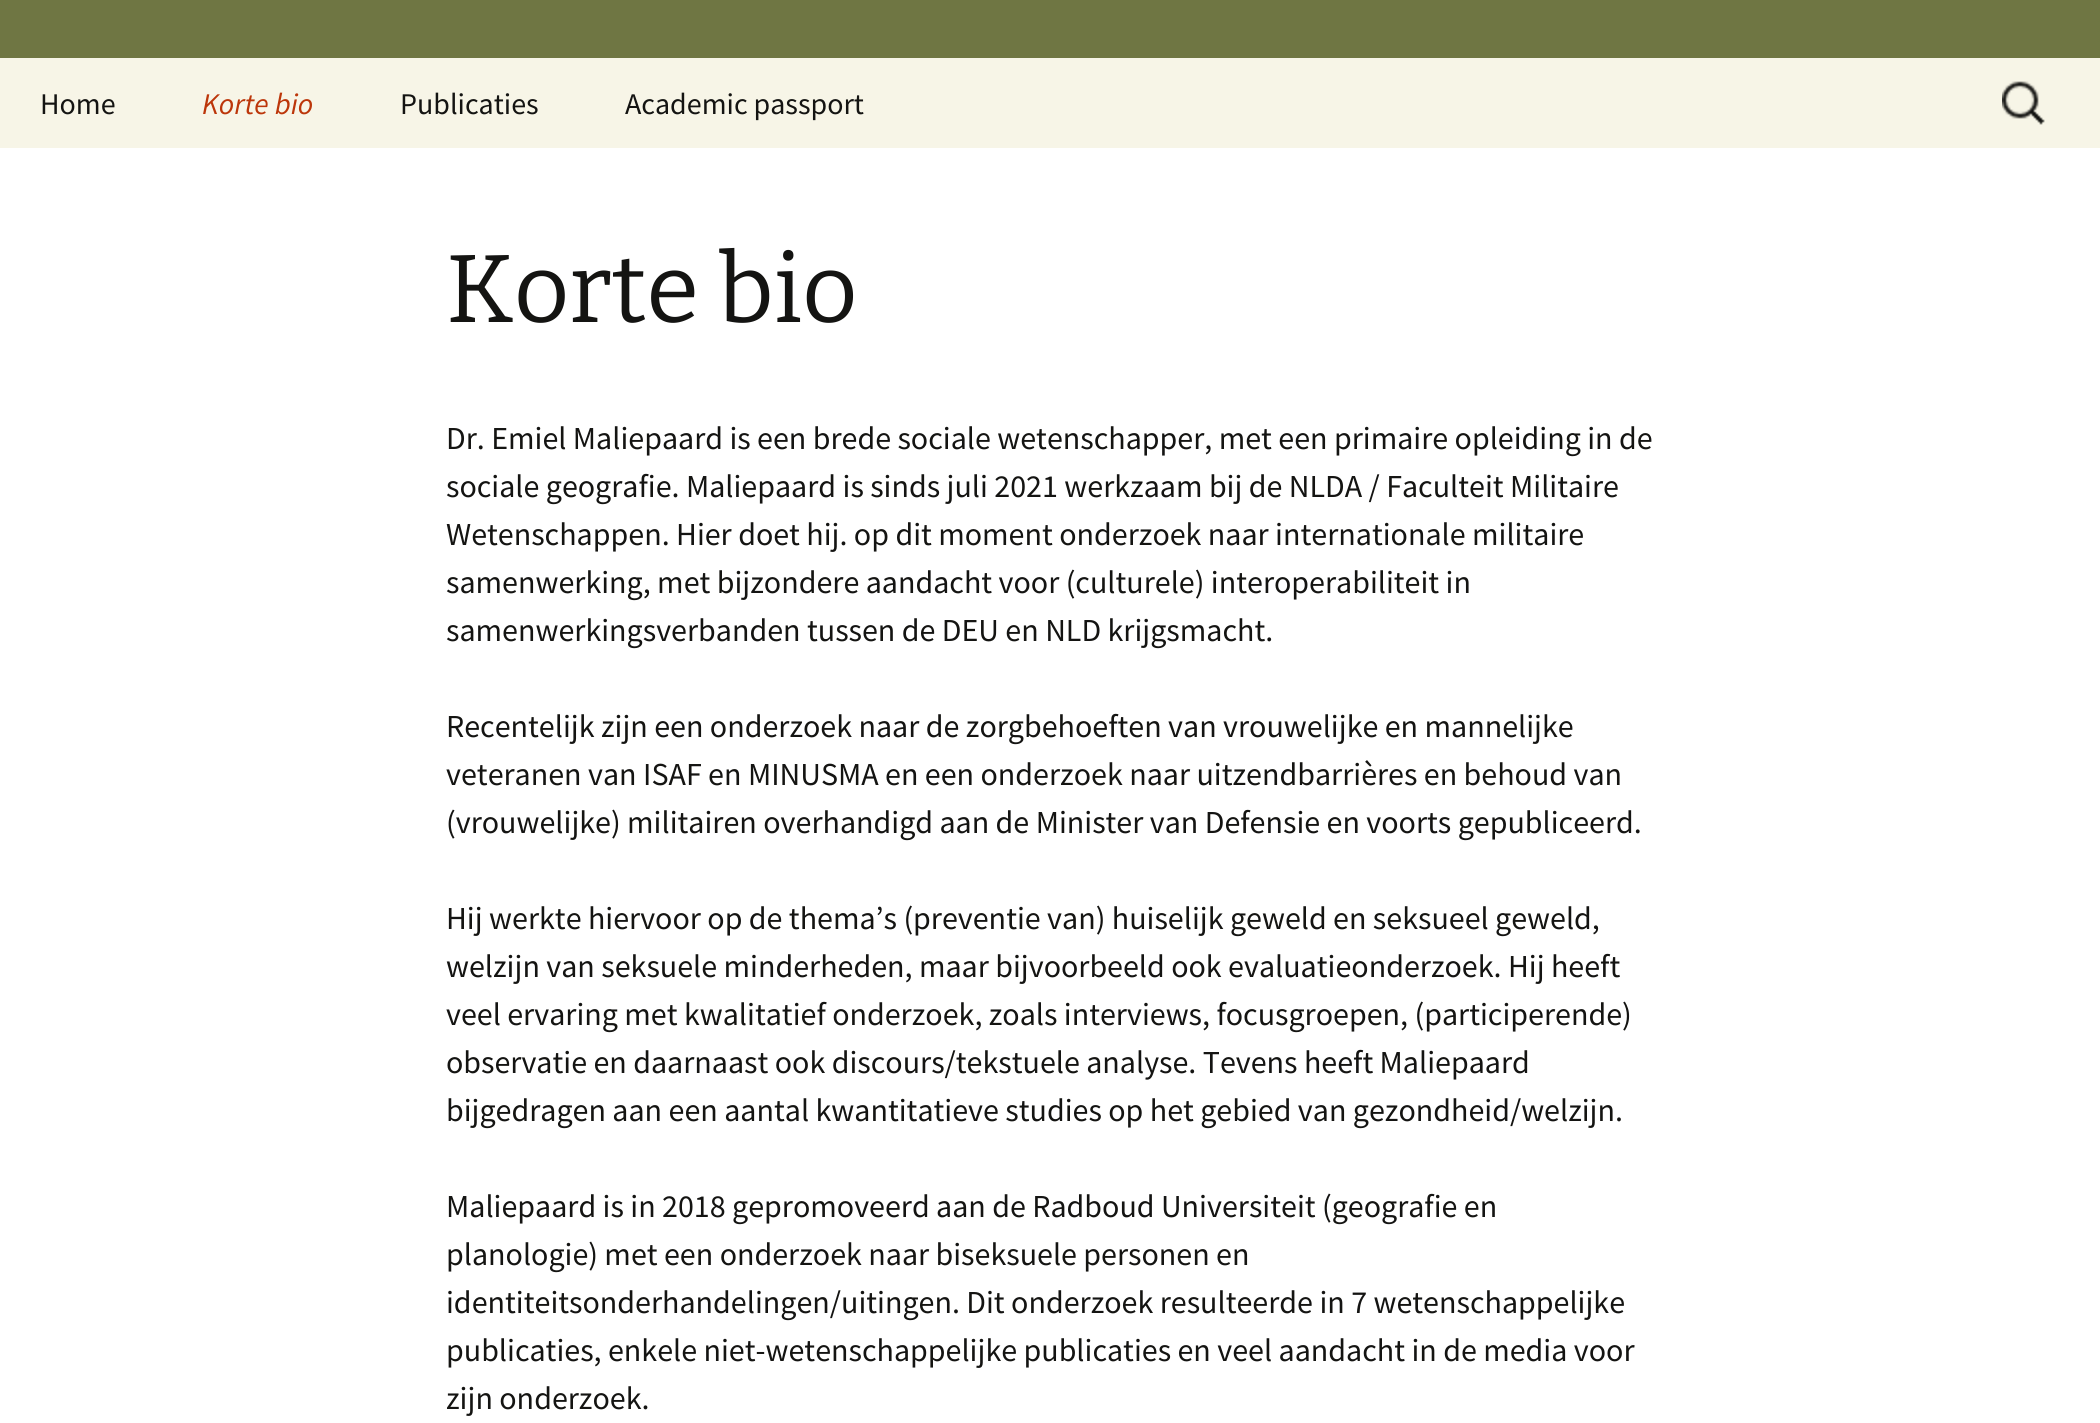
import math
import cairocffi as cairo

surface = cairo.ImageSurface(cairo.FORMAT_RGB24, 2100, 1423)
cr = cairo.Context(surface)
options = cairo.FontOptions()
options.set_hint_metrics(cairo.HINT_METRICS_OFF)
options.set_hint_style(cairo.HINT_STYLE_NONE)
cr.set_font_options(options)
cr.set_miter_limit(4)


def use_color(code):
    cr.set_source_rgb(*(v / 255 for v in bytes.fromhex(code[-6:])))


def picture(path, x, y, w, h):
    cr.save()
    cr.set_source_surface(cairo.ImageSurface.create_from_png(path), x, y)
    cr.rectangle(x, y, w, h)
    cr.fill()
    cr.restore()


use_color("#ffffff")
cr.paint()
use_color("#6f7643")
cr.rectangle(0, 0, 2100, 58)
cr.fill()
use_color("#f7f5e7")
cr.rectangle(0, 58, 2100, 90)
cr.fill()
cr.select_font_face("Source Sans Pro")
cr.set_font_size(30)
use_color("#141412")
cr.move_to(40, 114)
cr.show_text("Home")
cr.select_font_face("Source Sans Pro", cairo.FONT_SLANT_ITALIC)
use_color("#bc360a")
cr.move_to(202, 114)
cr.show_text("Korte bio")
cr.select_font_face("Source Sans Pro")
use_color("#141412")
cr.move_to(400, 114)
cr.show_text("Publicaties")
cr.move_to(625, 114)
cr.show_text("Academic passport")
picture("img1.png", 2002, 81, 43, 44)
cr.select_font_face("Bitter")
cr.set_font_size(96)
cr.move_to(446, 322)
cr.show_text("Korte bio")
cr.select_font_face("Source Sans Pro")
cr.set_font_size(32)
cr.move_to(446, 449)
cr.show_text("Dr. Emiel Maliepaard is een brede sociale wetenschapper, met een primaire opleiding in de")
cr.move_to(446, 497)
cr.show_text("sociale geografie. Maliepaard is sinds juli 2021 werkzaam bij de NLDA / Faculteit Militaire")
cr.move_to(446, 545)
cr.show_text("Wetenschappen. Hier doet hij. op dit moment onderzoek naar internationale militaire")
cr.move_to(446, 593)
cr.show_text("samenwerking, met bijzondere aandacht voor (culturele) interoperabiliteit in")
cr.move_to(446, 641)
cr.show_text("samenwerkingsverbanden tussen de DEU en NLD krijgsmacht.")
cr.move_to(446, 737)
cr.show_text("Recentelijk zijn een onderzoek naar de zorgbehoeften van vrouwelijke en mannelijke")
cr.move_to(446, 785)
cr.show_text("veteranen van ISAF en MINUSMA en een onderzoek naar uitzendbarrières en behoud van")
cr.move_to(446, 833)
cr.show_text("(vrouwelijke) militairen overhandigd aan de Minister van Defensie en voorts gepubliceerd.")
cr.move_to(446, 929)
cr.show_text("Hij werkte hiervoor op de thema’s (preventie van) huiselijk geweld en seksueel geweld,")
cr.move_to(446, 977)
cr.show_text("welzijn van seksuele minderheden, maar bijvoorbeeld ook evaluatieonderzoek. Hij heeft")
cr.move_to(446, 1025)
cr.show_text("veel ervaring met kwalitatief onderzoek, zoals interviews, focusgroepen, (participerende)")
cr.move_to(446, 1073)
cr.show_text("observatie en daarnaast ook discours/tekstuele analyse. Tevens heeft Maliepaard")
cr.move_to(446, 1121)
cr.show_text("bijgedragen aan een aantal kwantitatieve studies op het gebied van gezondheid/welzijn.")
cr.move_to(446, 1217)
cr.show_text("Maliepaard is in 2018 gepromoveerd aan de Radboud Universiteit (geografie en")
cr.move_to(446, 1265)
cr.show_text("planologie) met een onderzoek naar biseksuele personen en")
cr.move_to(446, 1313)
cr.show_text("identiteitsonderhandelingen/uitingen. Dit onderzoek resulteerde in 7 wetenschappelijke")
cr.move_to(446, 1361)
cr.show_text("publicaties, enkele niet-wetenschappelijke publicaties en veel aandacht in de media voor")
cr.move_to(446, 1409)
cr.show_text("zijn onderzoek.")
surface.write_to_png("result.png")
